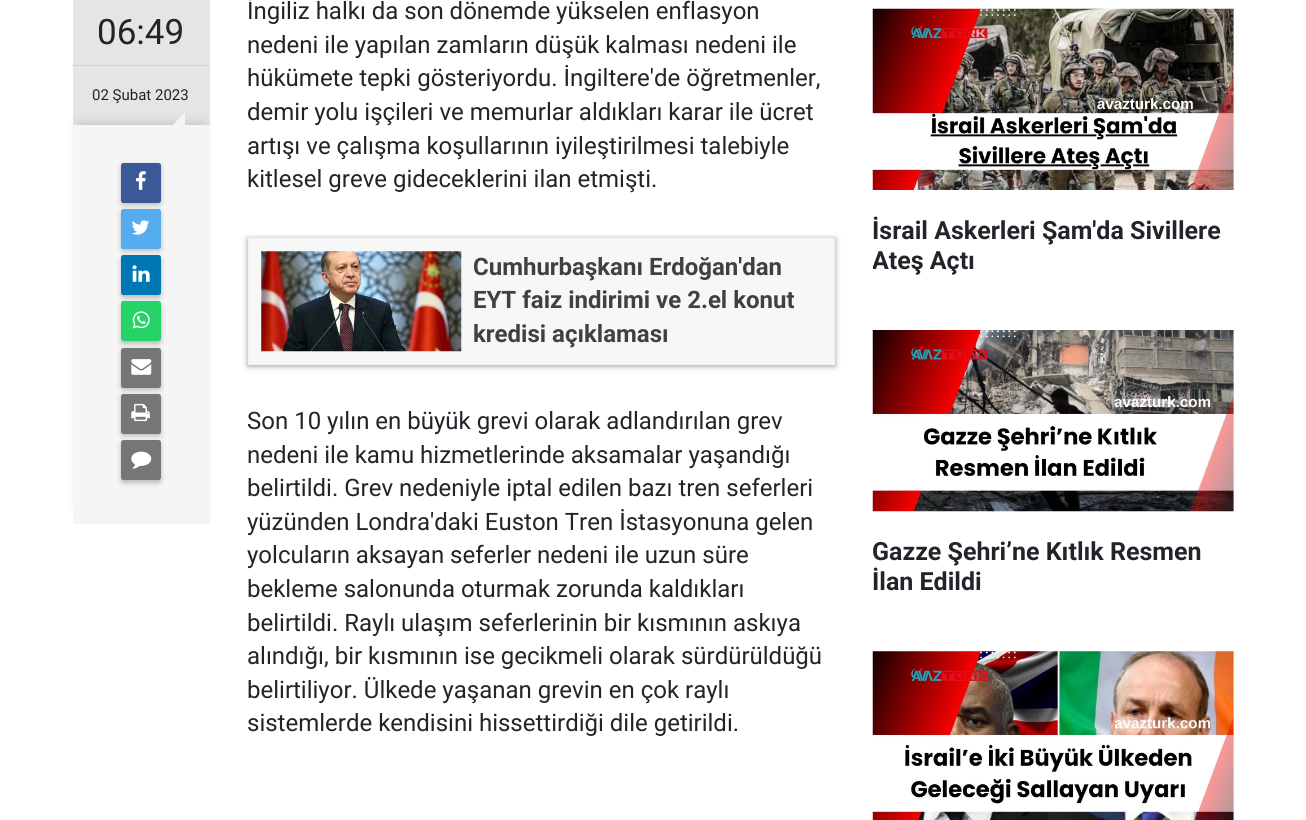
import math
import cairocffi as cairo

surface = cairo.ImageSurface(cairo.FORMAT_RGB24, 1306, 820)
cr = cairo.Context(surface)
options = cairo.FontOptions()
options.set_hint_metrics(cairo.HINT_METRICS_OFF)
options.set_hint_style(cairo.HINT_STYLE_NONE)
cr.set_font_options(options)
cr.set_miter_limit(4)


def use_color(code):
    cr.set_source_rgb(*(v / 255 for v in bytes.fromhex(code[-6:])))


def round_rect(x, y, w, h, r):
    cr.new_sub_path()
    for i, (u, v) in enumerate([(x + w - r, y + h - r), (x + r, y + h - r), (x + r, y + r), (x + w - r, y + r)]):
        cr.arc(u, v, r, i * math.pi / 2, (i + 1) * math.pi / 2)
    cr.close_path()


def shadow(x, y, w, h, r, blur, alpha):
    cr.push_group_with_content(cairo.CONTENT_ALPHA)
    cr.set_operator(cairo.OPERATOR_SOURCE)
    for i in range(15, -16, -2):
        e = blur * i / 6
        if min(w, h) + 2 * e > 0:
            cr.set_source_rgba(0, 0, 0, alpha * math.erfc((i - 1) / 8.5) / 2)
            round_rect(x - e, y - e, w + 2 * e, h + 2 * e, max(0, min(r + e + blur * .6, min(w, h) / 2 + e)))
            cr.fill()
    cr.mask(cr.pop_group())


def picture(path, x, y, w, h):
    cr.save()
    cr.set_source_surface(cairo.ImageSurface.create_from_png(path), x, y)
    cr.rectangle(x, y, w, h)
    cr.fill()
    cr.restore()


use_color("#ffffff")
cr.paint()
use_color("#e5e5e5")
cr.rectangle(73, 0, 137, 125)
cr.fill()
cr.select_font_face("Roboto")
cr.set_font_size(35)
use_color("#212529")
cr.move_to(97, 44)
cr.show_text("06:49")
cr.new_path()
cr.move_to(72.5, 65.5)
cr.line_to(210, 65.5)
use_color("#c3c3c3")
cr.set_line_width(1.2)
cr.set_dash([1.25, 1.25])
cr.stroke()
cr.set_font_size(15)
use_color("#212529")
cr.move_to(92, 100)
cr.show_text("02 Şubat 2023")
use_color("#000000")
shadow(79, 123, 125, 386, 0, 6, 0.15)
use_color("#f5f5f5")
cr.rectangle(73, 125, 137, 399)
cr.fill()
cr.new_path()
cr.move_to(185, 125)
cr.line_to(172.5, 125)
cr.line_to(185, 112.5)
cr.close_path()
cr.fill()
use_color("#323232")
shadow(121, 165, 40, 40, 2.5, 2.5, 0.3)
use_color("#3b5999")
round_rect(121, 163, 40, 40, 2.5)
cr.fill()
picture("img1.png", 136, 171, 10, 19)
use_color("#323232")
shadow(121, 211, 40, 40, 2.5, 2.5, 0.3)
use_color("#55acee")
round_rect(121, 209, 40, 40, 2.5)
cr.fill()
picture("img2.png", 132, 220, 18, 15)
use_color("#323232")
shadow(121, 258, 40, 40, 2.5, 2.5, 0.3)
use_color("#0077b5")
round_rect(121, 255, 40, 40, 2.5)
cr.fill()
picture("img3.png", 132, 265, 18, 17)
use_color("#323232")
shadow(121, 304, 40, 40, 2.5, 2.5, 0.3)
use_color("#25d366")
round_rect(121, 301, 40, 40, 2.5)
cr.fill()
picture("img4.png", 132, 311, 18, 18)
use_color("#323232")
shadow(121, 350, 40, 40, 2.5, 2.5, 0.3)
use_color("#767676")
round_rect(121, 348, 40, 40, 2.5)
cr.fill()
picture("img5.png", 131, 359, 21, 16)
use_color("#323232")
shadow(121, 396, 40, 40, 2.5, 2.5, 0.3)
use_color("#767676")
round_rect(121, 394, 40, 40, 2.5)
cr.fill()
picture("img6.png", 131, 403, 19, 19)
use_color("#323232")
shadow(121, 443, 40, 40, 2.5, 2.5, 0.3)
use_color("#767676")
round_rect(121, 440, 40, 40, 2.5)
cr.fill()
picture("img7.png", 131, 451, 21, 18)
cr.set_font_size(24)
use_color("#212529")
cr.move_to(247, 19)
cr.show_text("İngiliz halkı da son dönemde yükselen enflasyon")
cr.move_to(247, 53)
cr.show_text("nedeni ile yapılan zamların düşük kalması nedeni ile")
cr.move_to(247, 86)
cr.show_text("hükümete tepki gösteriyordu. İngiltere'de öğretmenler,")
cr.move_to(247, 120)
cr.show_text("demir yolu işçileri ve memurlar aldıkları karar ile ücret")
cr.move_to(247, 154)
cr.show_text("artışı ve çalışma koşullarının iyileştirilmesi talebiyle")
cr.move_to(247, 187)
cr.show_text("kitlesel greve gideceklerini ilan etmişti.")
use_color("#000000")
shadow(248, 239, 587, 127, 0, 3, 0.4)
use_color("#f7f7f7")
cr.rectangle(248.5, 238.5, 586, 126)
cr.fill_preserve()
use_color("#f1f1f1")
cr.set_line_width(1)
cr.set_dash([])
cr.stroke()
picture("img8.png", 261, 251, 201, 101)
cr.select_font_face("Roboto", cairo.FONT_SLANT_NORMAL, cairo.FONT_WEIGHT_BOLD)
use_color("#404040")
cr.move_to(473, 275)
cr.show_text("Cumhurbaşkanı Erdoğan'dan")
cr.move_to(473, 308)
cr.show_text("EYT faiz indirimi ve 2.el konut")
cr.move_to(473, 342)
cr.show_text("kredisi açıklaması")
cr.select_font_face("Roboto")
use_color("#212529")
cr.move_to(247, 429)
cr.show_text("Son 10 yılın en büyük grevi olarak adlandırılan grev")
cr.move_to(247, 463)
cr.show_text("nedeni ile kamu hizmetlerinde aksamalar yaşandığı")
cr.move_to(247, 496)
cr.show_text("belirtildi. Grev nedeniyle iptal edilen bazı tren seferleri")
cr.move_to(247, 530)
cr.show_text("yüzünden Londra'daki Euston Tren İstasyonuna gelen")
cr.move_to(247, 563)
cr.show_text("yolcuların aksayan seferler nedeni ile uzun süre")
cr.move_to(247, 597)
cr.show_text("bekleme salonunda oturmak zorunda kaldıkları")
cr.move_to(247, 631)
cr.show_text("belirtildi. Raylı ulaşım seferlerinin bir kısmının askıya")
cr.move_to(247, 664)
cr.show_text("alındığı, bir kısmının ise gecikmeli olarak sürdürüldüğü")
cr.move_to(247, 698)
cr.show_text("belirtiliyor. Ülkede yaşanan grevin en çok raylı")
cr.move_to(247, 731)
cr.show_text("sistemlerde kendisini hissettirdiği dile getirildi.")
use_color("#f8f8f8")
cr.rectangle(1233, 9, 1, 181)
cr.fill()
picture("img9.png", 872, 8, 362, 182)
cr.select_font_face("Roboto", cairo.FONT_SLANT_NORMAL, cairo.FONT_WEIGHT_BOLD)
cr.set_font_size(25)
use_color("#212529")
cr.move_to(872, 239)
cr.show_text("İsrail Askerleri Şam'da Sivillere")
cr.save()
cr.rectangle(873, 215, 361, 60)
cr.clip()
cr.move_to(872, 269)
cr.show_text("Ateş Açtı")
cr.restore()
use_color("#f8f8f8")
cr.rectangle(1233, 330, 1, 181)
cr.fill()
picture("img10.png", 872, 330, 362, 182)
use_color("#212529")
cr.move_to(872, 560)
cr.show_text("Gazze Şehri’ne Kıtlık Resmen")
cr.move_to(872, 590)
cr.show_text("İlan Edildi")
use_color("#f8f8f8")
cr.rectangle(873, 651, 361, 169)
cr.fill()
picture("img11.png", 872, 651, 362, 169)
surface.write_to_png("result.png")
